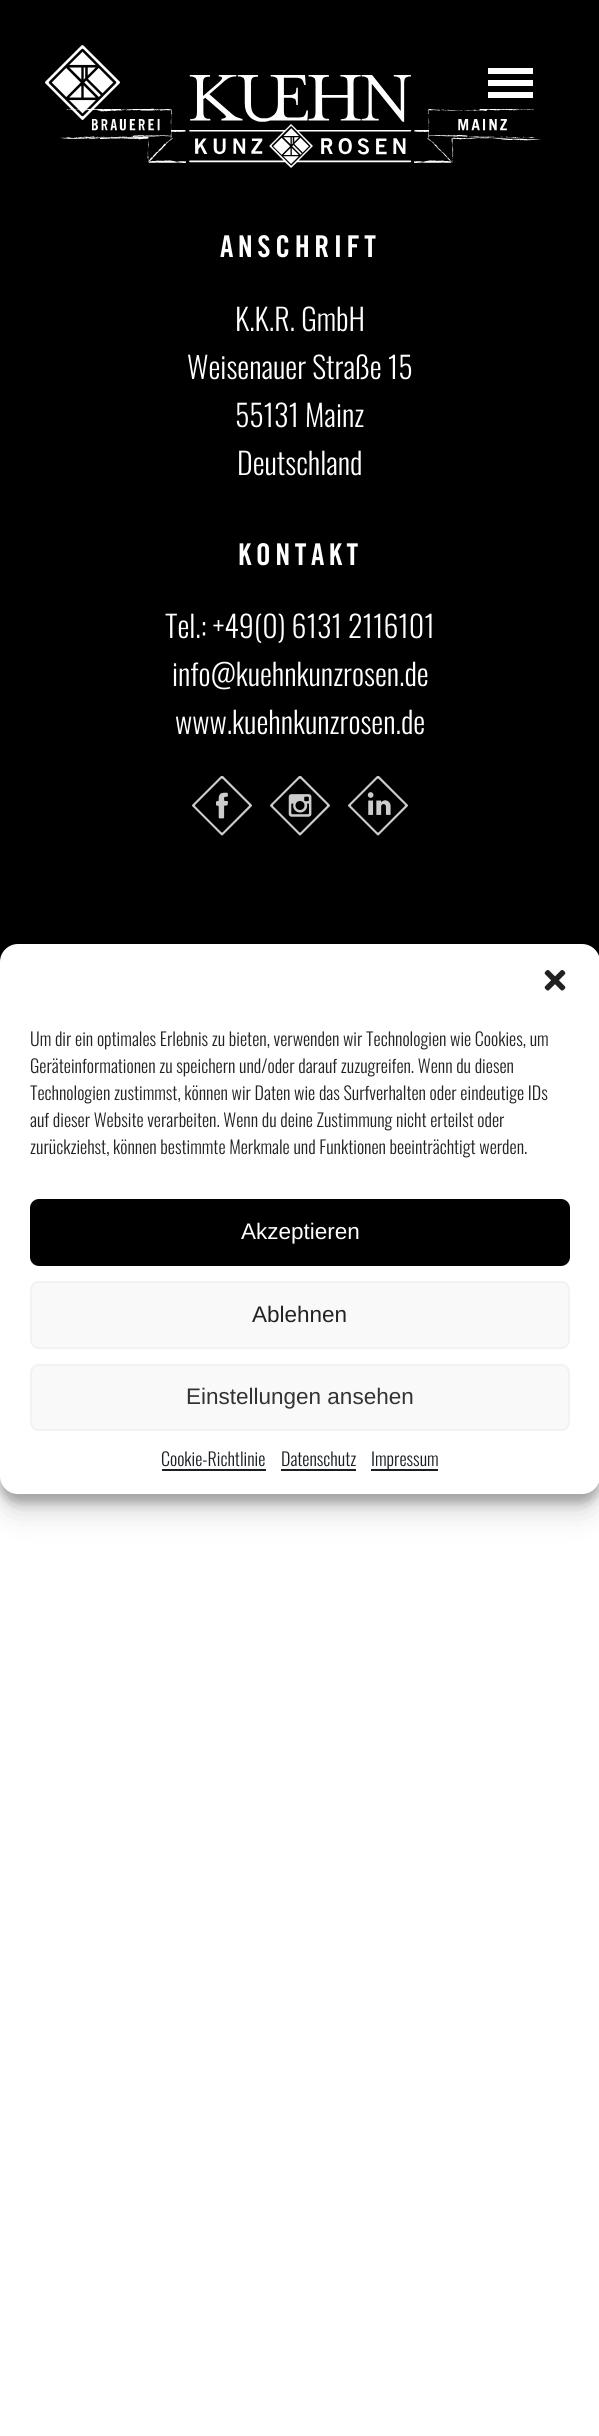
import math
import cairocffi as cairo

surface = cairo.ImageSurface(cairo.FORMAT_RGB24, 599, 2436)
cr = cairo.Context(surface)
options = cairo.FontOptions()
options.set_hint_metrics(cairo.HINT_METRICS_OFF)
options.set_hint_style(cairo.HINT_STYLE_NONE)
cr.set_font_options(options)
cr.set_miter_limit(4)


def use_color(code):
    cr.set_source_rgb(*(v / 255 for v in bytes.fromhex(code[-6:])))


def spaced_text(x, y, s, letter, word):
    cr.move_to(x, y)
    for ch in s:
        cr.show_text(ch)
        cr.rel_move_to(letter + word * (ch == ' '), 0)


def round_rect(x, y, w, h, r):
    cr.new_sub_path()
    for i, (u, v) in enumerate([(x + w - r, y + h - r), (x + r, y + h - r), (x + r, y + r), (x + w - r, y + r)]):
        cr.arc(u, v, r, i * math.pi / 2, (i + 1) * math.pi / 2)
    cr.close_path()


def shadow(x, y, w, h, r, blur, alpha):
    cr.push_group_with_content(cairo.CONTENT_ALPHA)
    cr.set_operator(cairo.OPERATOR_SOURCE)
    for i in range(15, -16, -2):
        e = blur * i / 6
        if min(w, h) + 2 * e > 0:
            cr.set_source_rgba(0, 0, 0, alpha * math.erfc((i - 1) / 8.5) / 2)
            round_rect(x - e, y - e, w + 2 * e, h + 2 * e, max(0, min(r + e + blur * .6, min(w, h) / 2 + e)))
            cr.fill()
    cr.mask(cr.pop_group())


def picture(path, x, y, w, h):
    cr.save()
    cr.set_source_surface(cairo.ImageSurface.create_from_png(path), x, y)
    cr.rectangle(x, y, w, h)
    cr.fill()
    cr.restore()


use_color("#ffffff")
cr.paint()
use_color("#000000")
cr.rectangle(0, 0, 599, 956)
cr.fill()
picture("img2.png", 60, 75, 480, 93)
picture("img1.png", 45, 45, 75, 75)
use_color("#ffffff")
cr.rectangle(488, 68, 45, 6)
cr.fill()
cr.rectangle(488, 80, 45, 6)
cr.fill()
cr.rectangle(488, 92, 45, 6)
cr.fill()
cr.select_font_face("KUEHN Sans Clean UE", cairo.FONT_SLANT_NORMAL, cairo.FONT_WEIGHT_BOLD)
cr.set_font_size(30)
spaced_text(220, 257, "ANSCHRIFT", 4.5, 0)
cr.select_font_face("Oswald Light")
cr.move_to(235, 331)
cr.show_text("K.K.R. GmbH")
cr.move_to(187, 379)
cr.show_text("Weisenauer Straße 15")
cr.move_to(235, 427)
cr.show_text("55131 Mainz")
cr.move_to(237, 475)
cr.show_text("Deutschland")
cr.select_font_face("KUEHN Sans Clean UE", cairo.FONT_SLANT_NORMAL, cairo.FONT_WEIGHT_BOLD)
spaced_text(238, 565, "KONTAKT", 4.5, 0)
cr.select_font_face("Oswald Light")
cr.move_to(165, 638)
cr.show_text("Tel.: +49(0) 6131 2116101")
cr.move_to(172, 686)
cr.show_text("info@kuehnkunzrosen.de")
cr.move_to(175, 734)
cr.show_text("www.kuehnkunzrosen.de")
picture("img3.png", 192, 776, 60, 60)
picture("img4.png", 270, 776, 60, 60)
picture("img5.png", 348, 776, 60, 60)
use_color("#000000")
cr.rectangle(0, 956, 1, 6)
cr.fill()
use_color("#000000")
shadow(0, 953, 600, 550, 18, 4.5, 0.23)
shadow(0, 959, 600, 550, 18, 15, 0.19)
use_color("#ffffff")
round_rect(0, 944, 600, 550, 18)
cr.fill()
picture("img6.png", 544, 970, 22, 21)
cr.set_font_size(18)
use_color("#222222")
cr.move_to(30, 1046)
cr.show_text("Um dir ein optimales Erlebnis zu bieten, verwenden wir Technologien wie Cookies, um")
cr.move_to(30, 1073)
cr.show_text("Geräteinformationen zu speichern und/oder darauf zuzugreifen. Wenn du diesen")
cr.move_to(30, 1100)
cr.show_text("Technologien zustimmst, können wir Daten wie das Surfverhalten oder eindeutige IDs")
cr.move_to(30, 1127)
cr.show_text("auf dieser Website verarbeiten. Wenn du deine Zustimmung nicht erteilst oder")
cr.move_to(30, 1154)
cr.show_text("zurückziehst, können bestimmte Merkmale und Funktionen beeinträchtigt werden.")
use_color("#000000")
round_rect(31, 1200, 538, 65, 8)
cr.fill_preserve()
cr.stroke()
cr.select_font_face("Liberation Sans")
cr.set_font_size(22.5)
use_color("#ffffff")
cr.move_to(241, 1239)
cr.show_text("Akzeptieren")
use_color("#f9f9f9")
round_rect(31, 1282, 538, 66, 8)
cr.fill_preserve()
use_color("#f2f2f2")
cr.stroke()
use_color("#222222")
cr.move_to(252, 1322)
cr.show_text("Ablehnen")
use_color("#f9f9f9")
round_rect(31, 1365, 538, 65, 8)
cr.fill_preserve()
use_color("#f2f2f2")
cr.stroke()
use_color("#333333")
cr.move_to(186, 1404)
cr.show_text("Einstellungen ansehen")
cr.select_font_face("Oswald Light")
cr.set_font_size(18)
use_color("#191e23")
cr.move_to(161, 1466)
cr.show_text("Cookie-Richtlinie")
cr.rectangle(162, 1469, 104, 2)
cr.fill()
cr.move_to(281, 1466)
cr.show_text("Datenschutz")
cr.rectangle(281, 1469, 75, 2)
cr.fill()
cr.rectangle(371, 1469, 67, 2)
cr.fill()
cr.move_to(371, 1466)
cr.show_text("Impressum")
surface.write_to_png("result.png")
